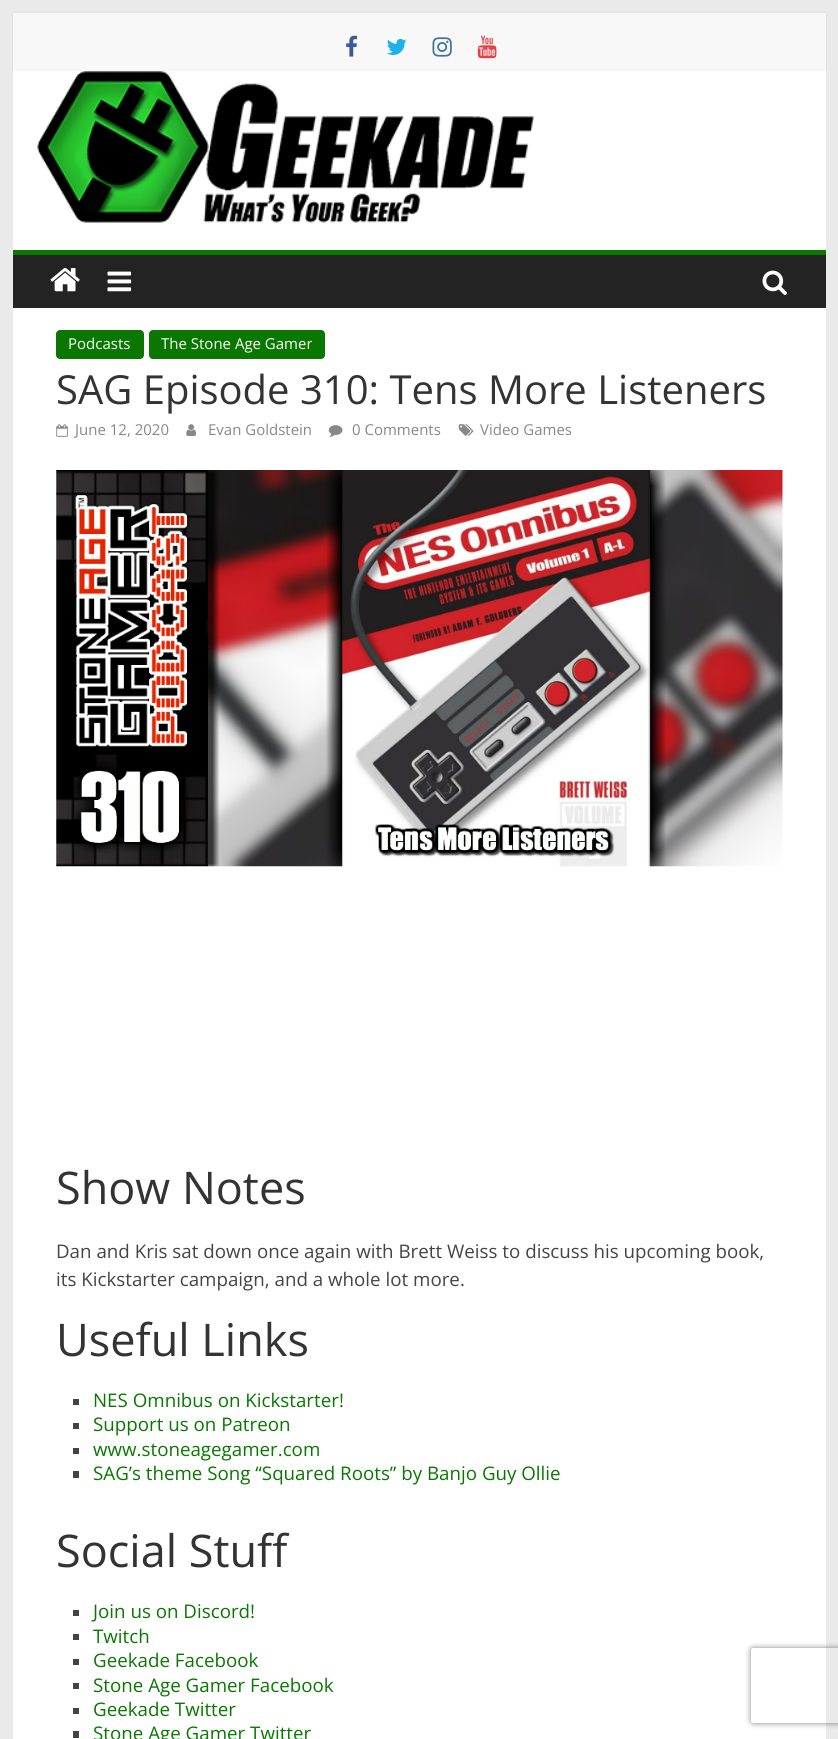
import math
import cairocffi as cairo

surface = cairo.ImageSurface(cairo.FORMAT_RGB24, 838, 1739)
cr = cairo.Context(surface)
options = cairo.FontOptions()
options.set_hint_metrics(cairo.HINT_METRICS_OFF)
options.set_hint_style(cairo.HINT_STYLE_NONE)
cr.set_font_options(options)
cr.set_miter_limit(4)


def use_color(code):
    cr.set_source_rgb(*(v / 255 for v in bytes.fromhex(code[-6:])))


def round_rect(x, y, w, h, r):
    cr.new_sub_path()
    for i, (u, v) in enumerate([(x + w - r, y + h - r), (x + r, y + h - r), (x + r, y + r), (x + w - r, y + r)]):
        cr.arc(u, v, r, i * math.pi / 2, (i + 1) * math.pi / 2)
    cr.close_path()


def shadow(x, y, w, h, r, blur, alpha):
    cr.push_group_with_content(cairo.CONTENT_ALPHA)
    cr.set_operator(cairo.OPERATOR_SOURCE)
    for i in range(15, -16, -2):
        e = blur * i / 6
        if min(w, h) + 2 * e > 0:
            cr.set_source_rgba(0, 0, 0, alpha * math.erfc((i - 1) / 8.5) / 2)
            round_rect(x - e, y - e, w + 2 * e, h + 2 * e, max(0, min(r + e + blur * .6, min(w, h) / 2 + e)))
            cr.fill()
    cr.mask(cr.pop_group())


def picture(path, x, y, w, h):
    cr.save()
    cr.set_source_surface(cairo.ImageSurface.create_from_png(path), x, y)
    cr.rectangle(x, y, w, h)
    cr.fill()
    cr.restore()


use_color("#eaeaea")
cr.paint()
use_color("#ffffff")
cr.rectangle(13, 70, 813, 180)
cr.fill()
use_color("#000000")
shadow(13, 13, 813, 57, 0, 1, 0.1)
use_color("#f8f8f8")
cr.rectangle(13, 13, 813, 57)
cr.fill()
picture("img1.png", 346, 35, 12, 22)
picture("img2.png", 387, 38, 20, 17)
picture("img3.png", 432, 37, 20, 20)
picture("img4.png", 477, 35, 20, 24)
picture("img5.png", 37, 71, 497, 152)
use_color("#232323")
cr.rectangle(13, 255, 813, 53)
cr.fill()
use_color("#097700")
cr.rectangle(13, 250, 813, 5)
cr.fill()
picture("img6.png", 50, 268, 30, 24)
picture("img7.png", 107, 271, 25, 21)
picture("img8.png", 762, 270, 25, 25)
use_color("#ffffff")
cr.rectangle(13, 308, 813, 1431)
cr.fill()
use_color("#097700")
round_rect(56, 330, 88, 29, 4)
cr.fill()
cr.select_font_face("Open Sans")
cr.set_font_size(15)
use_color("#ffffff")
cr.move_to(68, 349)
cr.show_text("Podcasts")
use_color("#097700")
round_rect(149, 330, 176, 29, 4)
cr.fill()
use_color("#ffffff")
cr.move_to(161, 349)
cr.show_text("The Stone Age Gamer")
cr.set_font_size(40)
use_color("#333333")
cr.move_to(56, 404)
cr.show_text("SAG Episode 310: Tens More Listeners")
picture("img9.png", 56, 424, 12, 13)
cr.set_font_size(15)
use_color("#888888")
cr.move_to(75, 435)
cr.show_text("June 12, 2020")
picture("img10.png", 186, 424, 11, 12)
cr.move_to(208, 435)
cr.show_text("Evan Goldstein")
picture("img11.png", 328, 425, 15, 12)
cr.move_to(352, 435)
cr.show_text("0 Comments")
picture("img12.png", 458, 424, 16, 12)
cr.move_to(480, 435)
cr.show_text("Video Games")
picture("img13.png", 56, 470, 727, 397)
cr.set_font_size(45)
use_color("#333333")
cr.move_to(56, 1204)
cr.show_text("Show Notes")
cr.set_font_size(18.75)
use_color("#444444")
cr.move_to(56, 1258)
cr.show_text("Dan and Kris sat down once again with Brett Weiss to discuss his upcoming book,")
cr.move_to(56, 1286)
cr.show_text("its Kickstarter campaign, and a whole lot more.")
cr.set_font_size(45)
use_color("#333333")
cr.move_to(56, 1356)
cr.show_text("Useful Links")
use_color("#444444")
cr.rectangle(73, 1399, 6, 6)
cr.fill()
cr.set_font_size(18.75)
use_color("#097700")
cr.move_to(93, 1407)
cr.show_text("NES Omnibus on Kickstarter!")
use_color("#444444")
cr.rectangle(73, 1423, 6, 6)
cr.fill()
use_color("#097700")
cr.move_to(93, 1431)
cr.show_text("Support us on Patreon")
use_color("#444444")
cr.rectangle(73, 1448, 6, 6)
cr.fill()
use_color("#097700")
cr.move_to(93, 1456)
cr.show_text("www.stoneagegamer.com")
use_color("#444444")
cr.rectangle(73, 1471, 6, 7)
cr.fill()
use_color("#097700")
cr.move_to(93, 1480)
cr.show_text("SAG’s theme Song “Squared Roots” by Banjo Guy Ollie")
cr.set_font_size(45)
use_color("#333333")
cr.move_to(56, 1567)
cr.show_text("Social Stuff")
use_color("#444444")
cr.rectangle(73, 1610, 6, 6)
cr.fill()
cr.set_font_size(18.75)
use_color("#097700")
cr.move_to(93, 1618)
cr.show_text("Join us on Discord!")
use_color("#444444")
cr.rectangle(73, 1634, 6, 6)
cr.fill()
use_color("#097700")
cr.move_to(93, 1643)
cr.show_text("Twitch")
use_color("#444444")
cr.rectangle(73, 1659, 6, 6)
cr.fill()
use_color("#097700")
cr.move_to(93, 1667)
cr.show_text("Geekade Facebook")
use_color("#444444")
cr.rectangle(73, 1683, 6, 6)
cr.fill()
use_color("#097700")
cr.move_to(93, 1692)
cr.show_text("Stone Age Gamer Facebook")
use_color("#444444")
cr.rectangle(73, 1708, 6, 6)
cr.fill()
use_color("#097700")
cr.move_to(93, 1716)
cr.show_text("Geekade Twitter")
use_color("#444444")
cr.rectangle(73, 1731, 6, 7)
cr.fill()
use_color("#097700")
cr.move_to(93, 1740)
cr.show_text("Stone Age Gamer Twitter")
cr.save()
cr.set_fill_rule(cairo.FILL_RULE_EVEN_ODD)
cr.new_path()
cr.move_to(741, 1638)
cr.line_to(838, 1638)
cr.line_to(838, 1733)
cr.line_to(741, 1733)
cr.close_path()
cr.move_to(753.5, 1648)
cr.line_to(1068.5, 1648)
cr.curve_to(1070, 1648, 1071, 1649, 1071, 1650.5)
cr.line_to(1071, 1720.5)
cr.curve_to(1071, 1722, 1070, 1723, 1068.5, 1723)
cr.line_to(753.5, 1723)
cr.curve_to(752, 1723, 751, 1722, 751, 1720.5)
cr.line_to(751, 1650.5)
cr.curve_to(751, 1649, 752, 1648, 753.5, 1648)
cr.close_path()
cr.clip()
use_color("#808080")
shadow(751, 1648, 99, 75, 2.5, 3, 1)
cr.restore()
surface.write_to_png("result.png")
